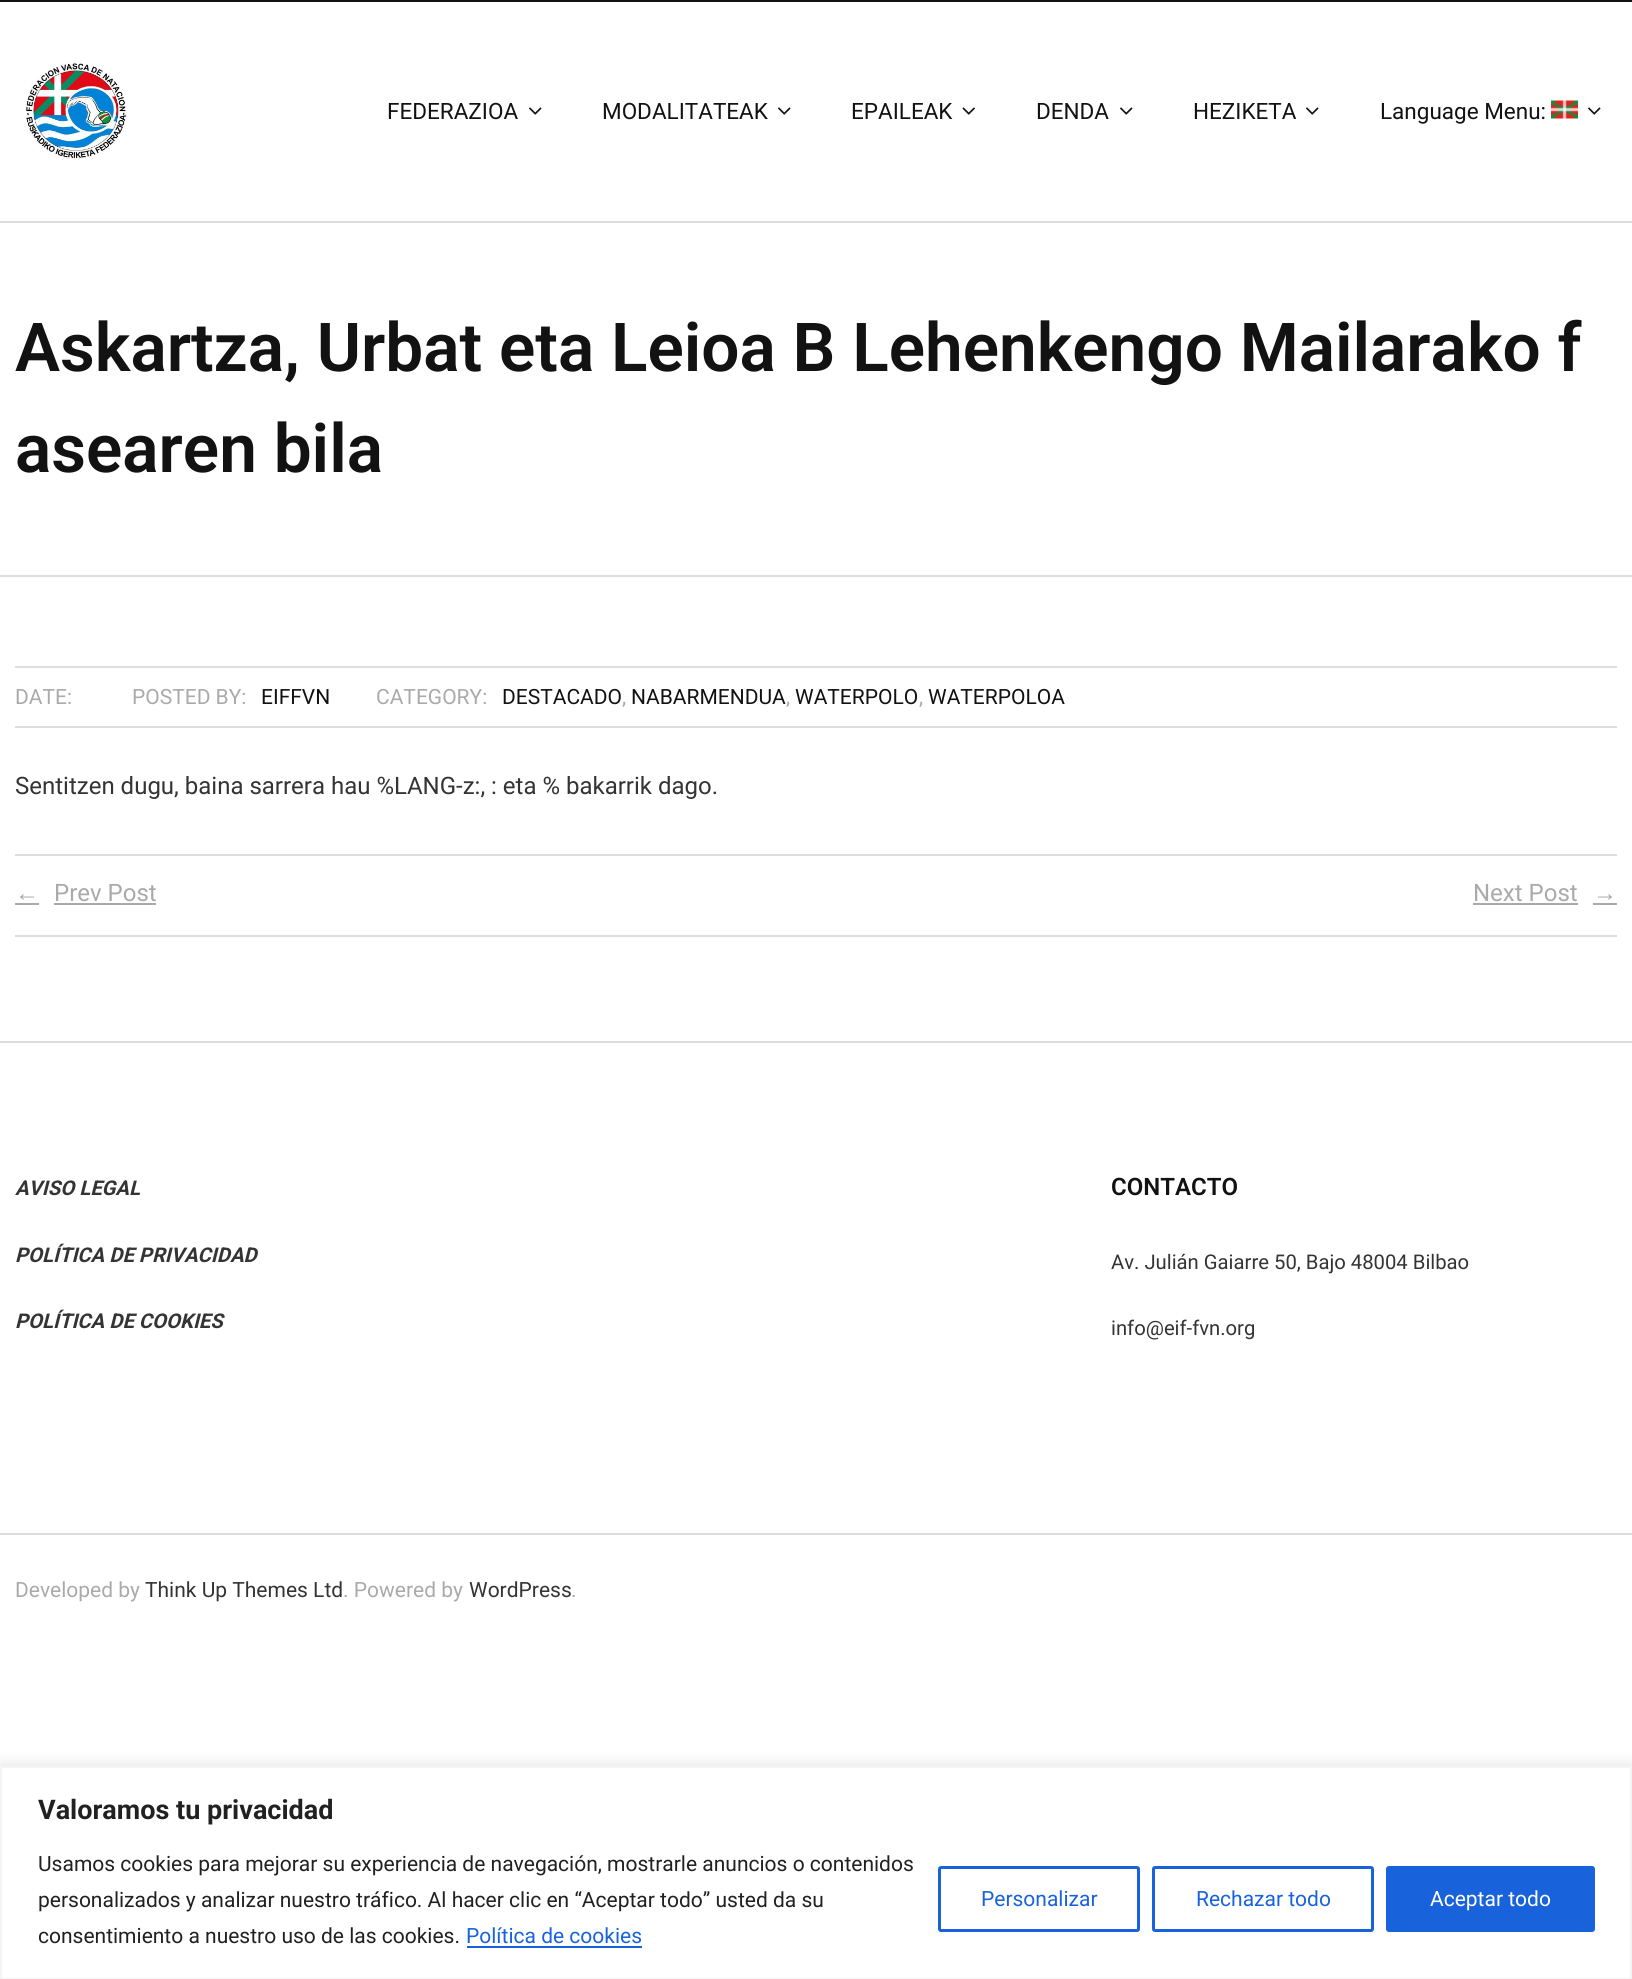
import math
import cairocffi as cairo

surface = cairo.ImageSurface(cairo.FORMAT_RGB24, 1632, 1979)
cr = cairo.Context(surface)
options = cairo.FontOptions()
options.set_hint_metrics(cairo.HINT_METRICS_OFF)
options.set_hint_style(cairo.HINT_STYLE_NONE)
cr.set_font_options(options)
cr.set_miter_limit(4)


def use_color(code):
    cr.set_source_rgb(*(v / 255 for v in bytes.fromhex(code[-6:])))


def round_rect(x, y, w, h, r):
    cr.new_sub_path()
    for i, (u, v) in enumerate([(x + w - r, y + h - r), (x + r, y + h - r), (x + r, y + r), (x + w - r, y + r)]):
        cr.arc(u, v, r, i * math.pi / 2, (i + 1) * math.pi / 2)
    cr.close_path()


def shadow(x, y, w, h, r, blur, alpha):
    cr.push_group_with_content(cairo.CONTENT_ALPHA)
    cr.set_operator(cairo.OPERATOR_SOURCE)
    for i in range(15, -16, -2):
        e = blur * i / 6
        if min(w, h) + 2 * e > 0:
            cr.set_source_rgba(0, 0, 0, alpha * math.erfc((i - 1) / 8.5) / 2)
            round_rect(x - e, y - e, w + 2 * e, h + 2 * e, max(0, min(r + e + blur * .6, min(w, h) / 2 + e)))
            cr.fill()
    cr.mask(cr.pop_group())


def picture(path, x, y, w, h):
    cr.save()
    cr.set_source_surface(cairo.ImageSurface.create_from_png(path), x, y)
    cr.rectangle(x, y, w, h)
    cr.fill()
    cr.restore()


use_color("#ffffff")
cr.paint()
use_color("#121212")
cr.rectangle(0, 0, 1632, 2)
cr.fill()
use_color("#dddddd")
cr.rectangle(0, 221, 1632, 2)
cr.fill()
picture("img1.png", 25, 62, 102, 97)
cr.select_font_face("Roboto")
cr.set_font_size(22.5)
use_color("#121212")
cr.move_to(387, 119)
cr.show_text("FEDERAZIOA")
picture("img2.png", 529, 107, 13, 8)
cr.move_to(602, 119)
cr.show_text("MODALITATEAK")
picture("img2.png", 778, 107, 13, 8)
cr.move_to(851, 119)
cr.show_text("EPAILEAK")
picture("img3.png", 962, 107, 13, 8)
cr.move_to(1036, 119)
cr.show_text("DENDA")
picture("img2.png", 1120, 107, 13, 8)
cr.move_to(1193, 119)
cr.show_text("HEZIKETA")
picture("img2.png", 1306, 107, 13, 8)
cr.move_to(1380, 119)
cr.show_text("Language Menu:")
picture("img4.png", 1551, 100, 27, 19)
picture("img2.png", 1588, 107, 13, 8)
use_color("#dddddd")
cr.rectangle(0, 575, 1632, 2)
cr.fill()
cr.select_font_face("Roboto SemiBold")
cr.set_font_size(67.5)
use_color("#121212")
cr.move_to(15, 371)
cr.show_text("Askartza, Urbat eta Leioa B Lehenkengo Mailarako f")
cr.move_to(15, 472)
cr.show_text("asearen bila")
use_color("#dddddd")
cr.rectangle(15, 666, 1602, 2)
cr.fill()
cr.rectangle(15, 726, 1602, 2)
cr.fill()
cr.select_font_face("Roboto")
cr.set_font_size(21)
use_color("#aaaaaa")
cr.move_to(15, 704)
cr.show_text("DATE:")
cr.move_to(132, 704)
cr.show_text("POSTED BY:")
use_color("#121212")
cr.move_to(261, 704)
cr.show_text("EIFFVN")
use_color("#aaaaaa")
cr.move_to(376, 704)
cr.show_text("CATEGORY:")
use_color("#121212")
cr.move_to(502, 704)
cr.show_text("DESTACADO")
use_color("#aaaaaa")
cr.move_to(622, 704)
cr.show_text(",")
use_color("#121212")
cr.move_to(631, 704)
cr.show_text("NABARMENDUA")
use_color("#aaaaaa")
cr.move_to(786, 704)
cr.show_text(",")
use_color("#121212")
cr.move_to(795, 704)
cr.show_text("WATERPOLO")
use_color("#aaaaaa")
cr.move_to(919, 704)
cr.show_text(",")
use_color("#121212")
cr.move_to(928, 704)
cr.show_text("WATERPOLOA")
cr.set_font_size(24)
use_color("#343434")
cr.move_to(15, 794)
cr.show_text("Sentitzen dugu, baina sarrera hau %LANG-z:, : eta % bakarrik dago.")
use_color("#dddddd")
cr.rectangle(15, 854, 1602, 2)
cr.fill()
cr.rectangle(15, 935, 1602, 2)
cr.fill()
cr.select_font_face("Liberation Sans")
use_color("#aaaaaa")
cr.move_to(15, 901)
cr.show_text("←")
cr.rectangle(15, 903, 24, 2)
cr.fill()
cr.select_font_face("Roboto")
cr.move_to(54, 901)
cr.show_text("Prev Post")
cr.rectangle(54, 903, 102, 2)
cr.fill()
cr.move_to(1473, 901)
cr.show_text("Next Post")
cr.rectangle(1473, 903, 105, 2)
cr.fill()
cr.select_font_face("Liberation Sans")
cr.move_to(1593, 901)
cr.show_text("→")
cr.rectangle(1593, 903, 24, 2)
cr.fill()
use_color("#dddddd")
cr.rectangle(0, 1041, 1632, 2)
cr.fill()
cr.select_font_face("Roboto", cairo.FONT_SLANT_ITALIC, cairo.FONT_WEIGHT_BOLD)
cr.set_font_size(20.25)
use_color("#343434")
cr.move_to(15, 1195)
cr.show_text("AVISO LEGAL")
cr.move_to(15, 1262)
cr.show_text("POLÍTICA DE PRIVACIDAD")
cr.move_to(15, 1328)
cr.show_text("POLÍTICA DE COOKIES")
cr.select_font_face("Roboto SemiBold")
cr.set_font_size(24)
use_color("#121212")
cr.move_to(1111, 1195)
cr.show_text("CONTACTO")
cr.select_font_face("Roboto")
cr.set_font_size(20.25)
use_color("#343434")
cr.move_to(1111, 1269)
cr.show_text("Av. Julián Gaiarre 50, Bajo 48004 Bilbao")
cr.move_to(1111, 1335)
cr.show_text("info@eif-fvn.org")
use_color("#dddddd")
cr.rectangle(0, 1533, 1632, 2)
cr.fill()
cr.set_font_size(21)
use_color("#aaaaaa")
cr.move_to(15, 1597)
cr.show_text("Developed by")
use_color("#343434")
cr.move_to(145, 1597)
cr.show_text("Think Up Themes Ltd")
use_color("#aaaaaa")
cr.move_to(343, 1597)
cr.show_text(". Powered by")
use_color("#343434")
cr.move_to(469, 1597)
cr.show_text("WordPress")
use_color("#aaaaaa")
cr.move_to(571, 1597)
cr.show_text(".")
cr.save()
cr.rectangle(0, 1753, 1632, 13)
cr.clip()
use_color("#acabab")
shadow(0, 1764, 1632, 215, 0, 7.5, 0.3)
cr.restore()
cr.rectangle(1, 1767, 1630, 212)
use_color("#f4f4f4")
cr.stroke()
cr.select_font_face("Roboto", cairo.FONT_SLANT_NORMAL, cairo.FONT_WEIGHT_BOLD)
cr.set_font_size(27)
use_color("#212121")
cr.move_to(38, 1819)
cr.show_text("Valoramos tu privacidad")
cr.select_font_face("Roboto")
cr.set_font_size(21)
cr.move_to(38, 1871)
cr.show_text("Usamos cookies para mejorar su experiencia de navegación, mostrarle anuncios o contenidos")
cr.move_to(38, 1907)
cr.show_text("personalizados y analizar nuestro tráfico. Al hacer clic en “Aceptar todo” usted da su")
cr.move_to(38, 1943)
cr.show_text("consentimiento a nuestro uso de las cookies.")
use_color("#1863dc")
cr.move_to(466, 1943)
cr.show_text("Política de cookies")
cr.rectangle(467, 1946, 175, 2)
cr.fill()
round_rect(939.5, 1867.5, 199, 63, 1.5)
cr.set_line_width(3)
cr.stroke()
cr.move_to(981, 1906)
cr.show_text("Personalizar")
round_rect(1153.5, 1867.5, 219, 63, 1.5)
cr.stroke()
cr.move_to(1196, 1906)
cr.show_text("Rechazar todo")
round_rect(1387.5, 1867.5, 206, 63, 1.5)
cr.fill_preserve()
cr.stroke()
use_color("#ffffff")
cr.move_to(1430, 1906)
cr.show_text("Aceptar todo")
surface.write_to_png("result.png")
